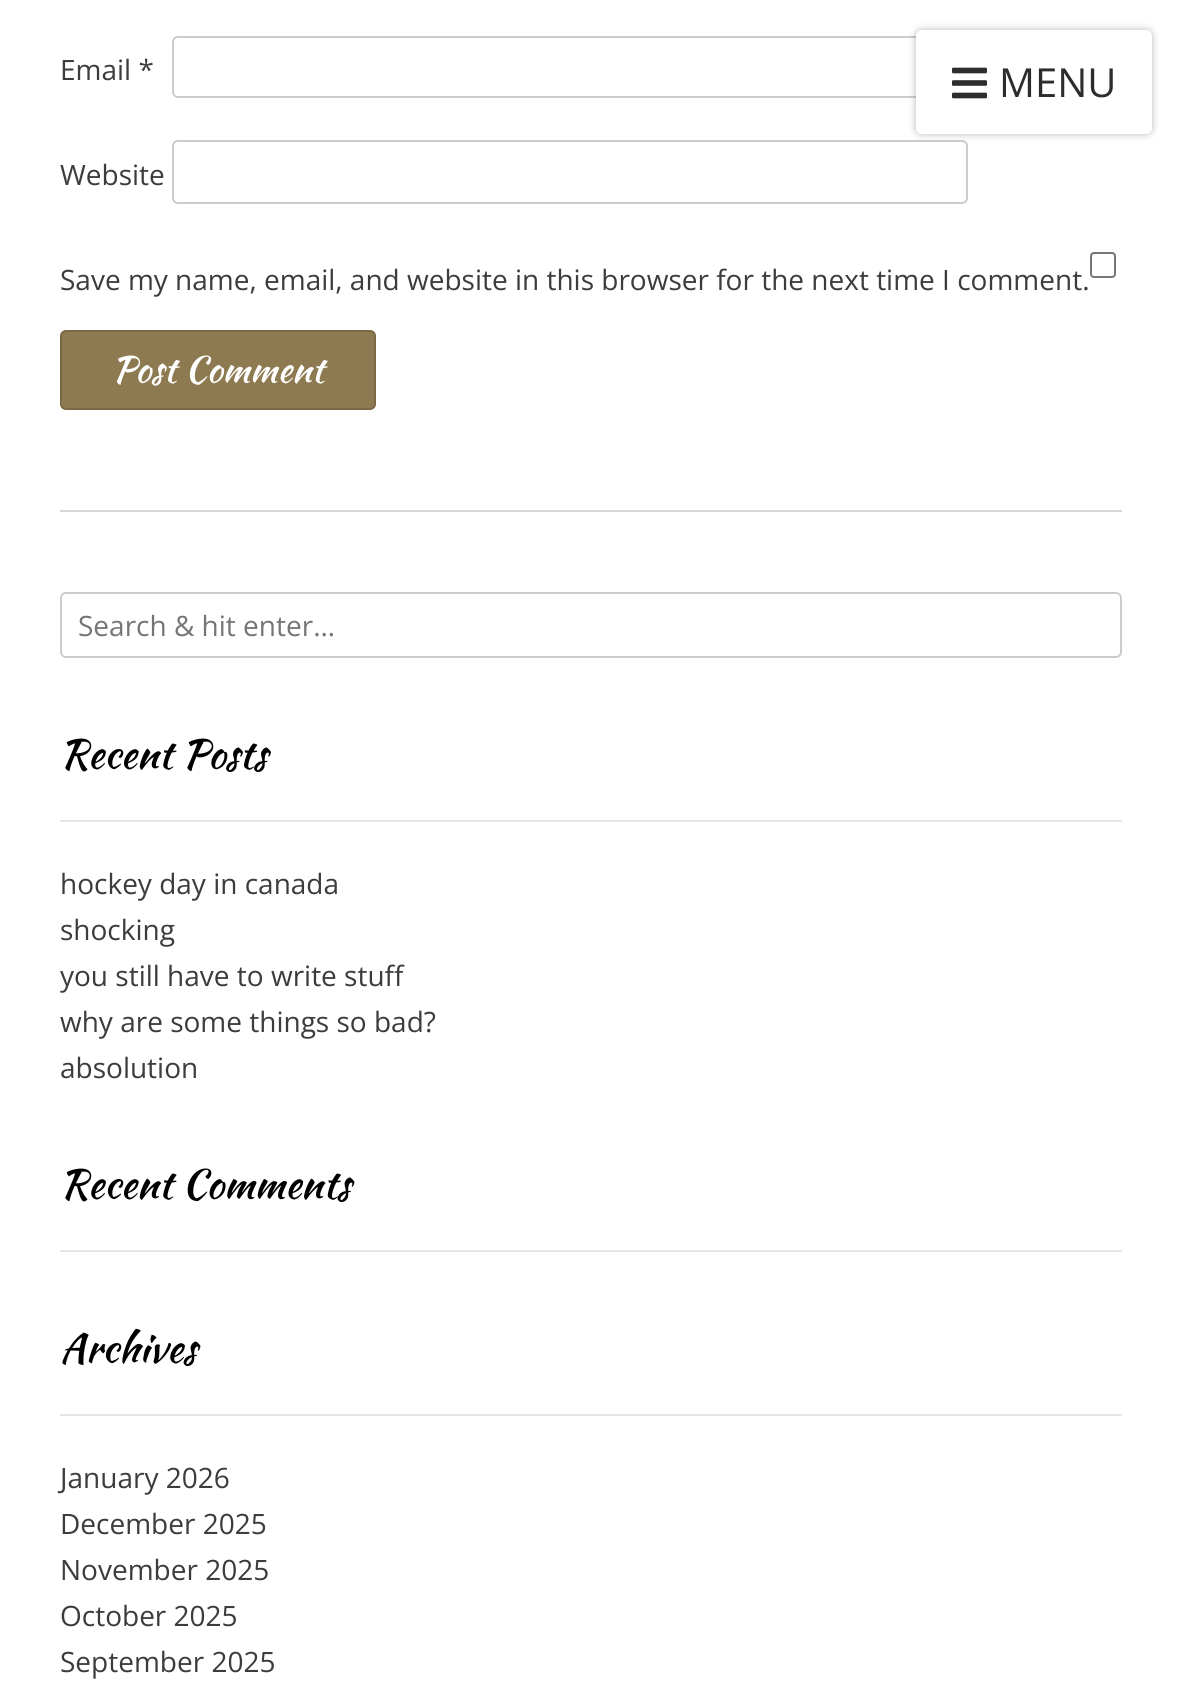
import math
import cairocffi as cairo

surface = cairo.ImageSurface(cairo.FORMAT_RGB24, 1181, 1697)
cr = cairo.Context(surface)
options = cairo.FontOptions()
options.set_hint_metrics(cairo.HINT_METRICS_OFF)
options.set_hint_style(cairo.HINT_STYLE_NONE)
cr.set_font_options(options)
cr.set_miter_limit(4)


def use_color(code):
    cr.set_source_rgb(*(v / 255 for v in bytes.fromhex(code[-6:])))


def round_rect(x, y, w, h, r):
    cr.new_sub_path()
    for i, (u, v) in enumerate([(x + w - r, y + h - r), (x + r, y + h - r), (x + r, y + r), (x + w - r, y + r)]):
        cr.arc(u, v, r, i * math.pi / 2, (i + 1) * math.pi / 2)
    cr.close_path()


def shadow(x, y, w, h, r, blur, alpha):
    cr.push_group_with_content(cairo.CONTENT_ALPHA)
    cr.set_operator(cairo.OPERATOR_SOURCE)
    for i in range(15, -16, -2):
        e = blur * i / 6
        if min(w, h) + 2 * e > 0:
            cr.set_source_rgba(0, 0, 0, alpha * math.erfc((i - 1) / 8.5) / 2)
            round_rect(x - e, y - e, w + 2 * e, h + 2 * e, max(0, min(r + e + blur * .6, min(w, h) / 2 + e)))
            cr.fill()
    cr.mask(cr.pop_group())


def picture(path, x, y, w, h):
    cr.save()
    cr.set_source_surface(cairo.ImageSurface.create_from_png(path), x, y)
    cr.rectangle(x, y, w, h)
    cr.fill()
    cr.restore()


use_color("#ffffff")
cr.paint()
cr.select_font_face("Open Sans")
cr.set_font_size(28)
use_color("#3c3c3c")
cr.move_to(60, 80)
cr.show_text("Email *")
round_rect(173, 37, 794, 60, 5)
use_color("#cccccc")
cr.stroke()
use_color("#3c3c3c")
cr.move_to(60, 185)
cr.show_text("Website")
round_rect(173, 141, 794, 62, 5)
use_color("#cccccc")
cr.stroke()
round_rect(1091, 253, 24, 24, 3)
use_color("#767676")
cr.stroke()
use_color("#3c3c3c")
cr.move_to(60, 290)
cr.show_text("Save my name, email, and website in this browser for the next time I comment.")
use_color("#8e7a50")
round_rect(60, 330, 316, 80, 6)
cr.fill()
round_rect(61, 331, 314, 78, 5)
cr.set_source_rgba(0, 0, 0, 0.14)
cr.stroke()
cr.select_font_face("Kaushan Script")
cr.set_font_size(36)
use_color("#ffffff")
cr.move_to(112, 382)
cr.show_text("Post Comment")
use_color("#d7d7d7")
cr.rectangle(60, 510, 1062, 2)
cr.fill()
round_rect(61, 593, 1060, 64, 5)
use_color("#cccccc")
cr.stroke()
cr.select_font_face("Open Sans")
cr.set_font_size(28)
use_color("#757575")
cr.move_to(78, 636)
cr.show_text("Search & hit enter…")
use_color("#e6e6e6")
cr.rectangle(60, 820, 1062, 2)
cr.fill()
cr.select_font_face("Kaushan Script")
cr.set_font_size(40)
use_color("#000000")
cr.move_to(60, 768)
cr.show_text("Recent Posts")
cr.select_font_face("Open Sans")
cr.set_font_size(28)
use_color("#3c3c3c")
cr.move_to(60, 894)
cr.show_text("hockey day in canada")
cr.move_to(60, 940)
cr.show_text("shocking")
cr.move_to(60, 986)
cr.show_text("you still have to write stuff")
cr.move_to(60, 1032)
cr.show_text("why are some things so bad?")
cr.move_to(60, 1078)
cr.show_text("absolution")
use_color("#e6e6e6")
cr.rectangle(60, 1250, 1062, 2)
cr.fill()
cr.select_font_face("Kaushan Script")
cr.set_font_size(40)
use_color("#000000")
cr.move_to(60, 1198)
cr.show_text("Recent Comments")
use_color("#e6e6e6")
cr.rectangle(60, 1414, 1062, 2)
cr.fill()
use_color("#000000")
cr.move_to(60, 1362)
cr.show_text("Archives")
cr.select_font_face("Open Sans")
cr.set_font_size(28)
use_color("#3c3c3c")
cr.move_to(60, 1488)
cr.show_text("January 2026")
cr.move_to(60, 1534)
cr.show_text("December 2025")
cr.move_to(60, 1580)
cr.show_text("November 2025")
cr.move_to(60, 1626)
cr.show_text("October 2025")
cr.move_to(60, 1672)
cr.show_text("September 2025")
use_color("#000000")
shadow(916, 30, 236, 104, 6, 4, 0.28)
use_color("#ffffff")
round_rect(916, 30, 236, 104, 6)
cr.fill()
picture("img1.png", 952, 67, 35, 32)
cr.set_font_size(40)
use_color("#2d2d2d")
cr.move_to(999, 97)
cr.show_text("MENU")
surface.write_to_png("result.png")
